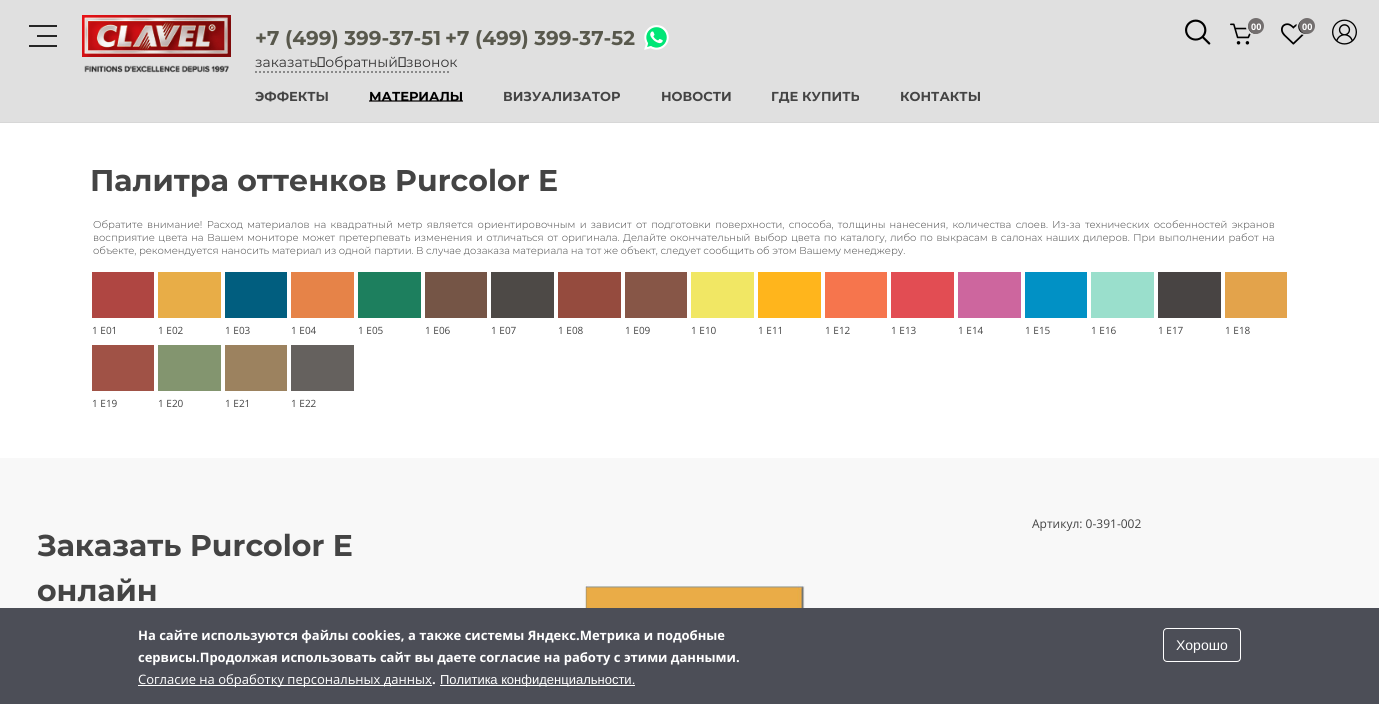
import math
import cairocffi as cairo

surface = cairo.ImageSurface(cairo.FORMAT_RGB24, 1379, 704)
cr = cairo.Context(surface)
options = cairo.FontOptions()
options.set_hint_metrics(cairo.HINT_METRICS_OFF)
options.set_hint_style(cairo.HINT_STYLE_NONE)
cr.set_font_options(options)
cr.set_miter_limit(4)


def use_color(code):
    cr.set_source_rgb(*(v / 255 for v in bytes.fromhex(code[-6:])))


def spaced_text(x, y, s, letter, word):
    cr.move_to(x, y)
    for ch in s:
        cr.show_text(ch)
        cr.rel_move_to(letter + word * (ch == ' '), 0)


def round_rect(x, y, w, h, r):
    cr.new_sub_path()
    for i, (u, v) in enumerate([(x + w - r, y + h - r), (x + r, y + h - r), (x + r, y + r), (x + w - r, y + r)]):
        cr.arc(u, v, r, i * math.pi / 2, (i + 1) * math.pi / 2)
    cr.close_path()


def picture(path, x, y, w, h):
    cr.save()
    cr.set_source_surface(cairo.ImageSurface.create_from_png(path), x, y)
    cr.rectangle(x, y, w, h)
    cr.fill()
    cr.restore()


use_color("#ffffff")
cr.paint()
use_color("#e0e0e0")
cr.rectangle(0, 0, 1379, 122)
cr.fill()
use_color("#d7d7d7")
cr.rectangle(0, 122, 1379, 1)
cr.fill()
use_color("#262626")
cr.rectangle(29, 25, 28, 2)
cr.fill()
cr.rectangle(37, 35, 20, 2)
cr.fill()
cr.rectangle(29, 45, 28, 2)
cr.fill()
picture("img1.png", 82, 15, 149, 42)
picture("img2.png", 84, 65, 145, 8)
picture("img3.png", 1185, 19, 26, 26)
picture("img4.png", 1230, 22, 30, 23)
use_color("#736f6f")
cr.arc(1256, 26, 8, 0, 2 * math.pi)
cr.fill()
cr.select_font_face("Open Sans", cairo.FONT_SLANT_NORMAL, cairo.FONT_WEIGHT_BOLD)
cr.set_font_size(9)
use_color("#ffffff")
cr.move_to(1251, 30)
cr.show_text("00")
picture("img5.png", 1281, 19, 28, 26)
use_color("#736f6f")
cr.arc(1307, 26, 8, 0, 2 * math.pi)
cr.fill()
use_color("#ffffff")
cr.move_to(1302, 30)
cr.show_text("00")
picture("img6.png", 1332, 19, 25, 26)
cr.select_font_face("Montserrat", cairo.FONT_SLANT_NORMAL, cairo.FONT_WEIGHT_BOLD)
cr.set_font_size(20)
use_color("#58584c")
cr.move_to(255, 45)
cr.show_text("+7 (499) 399-37-51")
cr.move_to(445, 45)
cr.show_text("+7 (499) 399-37-52")
picture("img7.png", 644, 25, 25, 25)
cr.select_font_face("Montserrat")
cr.set_font_size(14)
use_color("#353434")
cr.move_to(255, 67)
cr.show_text("заказать обратный звонок")
cr.new_path()
cr.move_to(255, 72)
cr.line_to(449, 72)
use_color("#8a8a8a")
cr.set_dash([2, 2])
cr.stroke()
cr.select_font_face("Montserrat", cairo.FONT_SLANT_NORMAL, cairo.FONT_WEIGHT_BOLD)
cr.set_font_size(13)
use_color("#444444")
cr.move_to(255, 101)
cr.show_text("ЭФФЕКТЫ")
use_color("#5b5959")
cr.rectangle(369, 100, 94, 2)
cr.fill()
use_color("#000000")
cr.move_to(369, 101)
cr.show_text("МАТЕРИАЛЫ")
use_color("#444444")
cr.move_to(503, 101)
cr.show_text("ВИЗУАЛИЗАТОР")
cr.move_to(661, 101)
cr.show_text("НОВОСТИ")
cr.move_to(771, 101)
cr.show_text("ГДЕ КУПИТЬ")
cr.move_to(900, 101)
cr.show_text("КОНТАКТЫ")
cr.set_font_size(30)
cr.move_to(90, 191)
cr.show_text("Палитра оттенков Purcolor E")
cr.select_font_face("Montserrat Light")
cr.set_font_size(10)
spaced_text(93, 228, "Обратите внимание! Расход материалов на квадратный метр является ориентировочным и зависит от подготовки поверхности, способа, толщины нанесения, количества слоев. Из-за технических особенностей экранов", 0, 1.75)
spaced_text(93, 241, "восприятие цвета на Вашем мониторе может претерпевать изменения и отличаться от оригинала. Делайте окончательный выбор цвета по каталогу, либо по выкрасам в салонах наших дилеров. При выполнении работ на", 0, 1)
cr.move_to(93, 254)
cr.show_text("объекте, рекомендуется наносить материал из одной партии. В случае дозаказа материала на тот же объект, следует сообщить об этом Вашему менеджеру.")
use_color("#af4642")
cr.rectangle(92, 272, 62, 46)
cr.fill()
cr.select_font_face("Open Sans")
use_color("#444444")
cr.move_to(92, 334)
cr.show_text("1 E01")
use_color("#e8ad47")
cr.rectangle(158, 272, 63, 46)
cr.fill()
use_color("#444444")
cr.move_to(158, 334)
cr.show_text("1 E02")
use_color("#015e7f")
cr.rectangle(225, 272, 62, 46)
cr.fill()
use_color("#444444")
cr.move_to(225, 334)
cr.show_text("1 E03")
use_color("#e68348")
cr.rectangle(291, 272, 63, 46)
cr.fill()
use_color("#444444")
cr.move_to(291, 334)
cr.show_text("1 E04")
use_color("#1d7f5e")
cr.rectangle(358, 272, 63, 46)
cr.fill()
use_color("#444444")
cr.move_to(358, 334)
cr.show_text("1 E05")
use_color("#755546")
cr.rectangle(425, 272, 62, 46)
cr.fill()
use_color("#444444")
cr.move_to(425, 334)
cr.show_text("1 E06")
use_color("#4d4946")
cr.rectangle(491, 272, 63, 46)
cr.fill()
use_color("#444444")
cr.move_to(491, 334)
cr.show_text("1 E07")
use_color("#954b3e")
cr.rectangle(558, 272, 63, 46)
cr.fill()
use_color("#444444")
cr.move_to(558, 334)
cr.show_text("1 E08")
use_color("#875647")
cr.rectangle(625, 272, 62, 46)
cr.fill()
use_color("#444444")
cr.move_to(625, 334)
cr.show_text("1 E09")
use_color("#f1e764")
cr.rectangle(691, 272, 63, 46)
cr.fill()
use_color("#444444")
cr.move_to(691, 334)
cr.show_text("1 E10")
use_color("#ffb51c")
cr.rectangle(758, 272, 63, 46)
cr.fill()
use_color("#444444")
cr.move_to(758, 334)
cr.show_text("1 E11")
use_color("#f6754d")
cr.rectangle(825, 272, 62, 46)
cr.fill()
use_color("#444444")
cr.move_to(825, 334)
cr.show_text("1 E12")
use_color("#e24d53")
cr.rectangle(891, 272, 63, 46)
cr.fill()
use_color("#444444")
cr.move_to(891, 334)
cr.show_text("1 E13")
use_color("#cd669e")
cr.rectangle(958, 272, 63, 46)
cr.fill()
use_color("#444444")
cr.move_to(958, 334)
cr.show_text("1 E14")
use_color("#0191c5")
cr.rectangle(1025, 272, 62, 46)
cr.fill()
use_color("#444444")
cr.move_to(1025, 334)
cr.show_text("1 E15")
use_color("#9adfcc")
cr.rectangle(1091, 272, 63, 46)
cr.fill()
use_color("#444444")
cr.move_to(1091, 334)
cr.show_text("1 E16")
use_color("#484443")
cr.rectangle(1158, 272, 63, 46)
cr.fill()
use_color("#444444")
cr.move_to(1158, 334)
cr.show_text("1 E17")
use_color("#e3a34b")
cr.rectangle(1225, 272, 62, 46)
cr.fill()
use_color("#444444")
cr.move_to(1225, 334)
cr.show_text("1 E18")
use_color("#a05246")
cr.rectangle(92, 345, 62, 46)
cr.fill()
use_color("#444444")
cr.move_to(92, 407)
cr.show_text("1 E19")
use_color("#83956f")
cr.rectangle(158, 345, 63, 46)
cr.fill()
use_color("#444444")
cr.move_to(158, 407)
cr.show_text("1 E20")
use_color("#9c825f")
cr.rectangle(225, 345, 62, 46)
cr.fill()
use_color("#444444")
cr.move_to(225, 407)
cr.show_text("1 E21")
use_color("#65615e")
cr.rectangle(291, 345, 63, 46)
cr.fill()
use_color("#444444")
cr.move_to(291, 407)
cr.show_text("1 E22")
use_color("#f8f8f8")
cr.rectangle(0, 458, 1379, 150)
cr.fill()
cr.set_font_size(12)
use_color("#444444")
cr.move_to(1032, 528)
cr.show_text("Артикул: 0-391-002")
cr.select_font_face("Montserrat", cairo.FONT_SLANT_NORMAL, cairo.FONT_WEIGHT_BOLD)
cr.set_font_size(30)
cr.move_to(37, 556)
cr.show_text("Заказать Purcolor E")
cr.move_to(37, 601)
cr.show_text("онлайн")
picture("img8.png", 584, 584, 221, 24)
use_color("#4c4e57")
cr.rectangle(0, 608, 1379, 96)
cr.fill()
cr.select_font_face("Open Sans", cairo.FONT_SLANT_NORMAL, cairo.FONT_WEIGHT_BOLD)
cr.set_font_size(13)
use_color("#ffffff")
cr.move_to(138, 640)
cr.show_text("На сайте используются файлы cookies, а также системы Яндекс.Метрика и подобные")
cr.move_to(138, 662)
cr.show_text("сервисы.Продолжая использовать сайт вы даете согласие на работу с этими данными.")
cr.rectangle(138, 685, 294, 1)
cr.fill()
cr.select_font_face("Open Sans")
cr.move_to(138, 684)
cr.show_text("Согласие на обработку персональных данных")
cr.select_font_face("Open Sans", cairo.FONT_SLANT_NORMAL, cairo.FONT_WEIGHT_BOLD)
cr.move_to(432, 684)
cr.show_text(".")
cr.rectangle(440, 685, 195, 1)
cr.fill()
cr.select_font_face("Liberation Sans")
cr.move_to(440, 684)
cr.show_text("Политика конфиденциальности.")
round_rect(1163.5, 628.5, 77, 33, 3.5)
cr.set_line_width(1)
cr.set_dash([])
cr.stroke()
cr.set_font_size(14)
cr.move_to(1176, 650)
cr.show_text("Хорошо")
surface.write_to_png("result.png")
